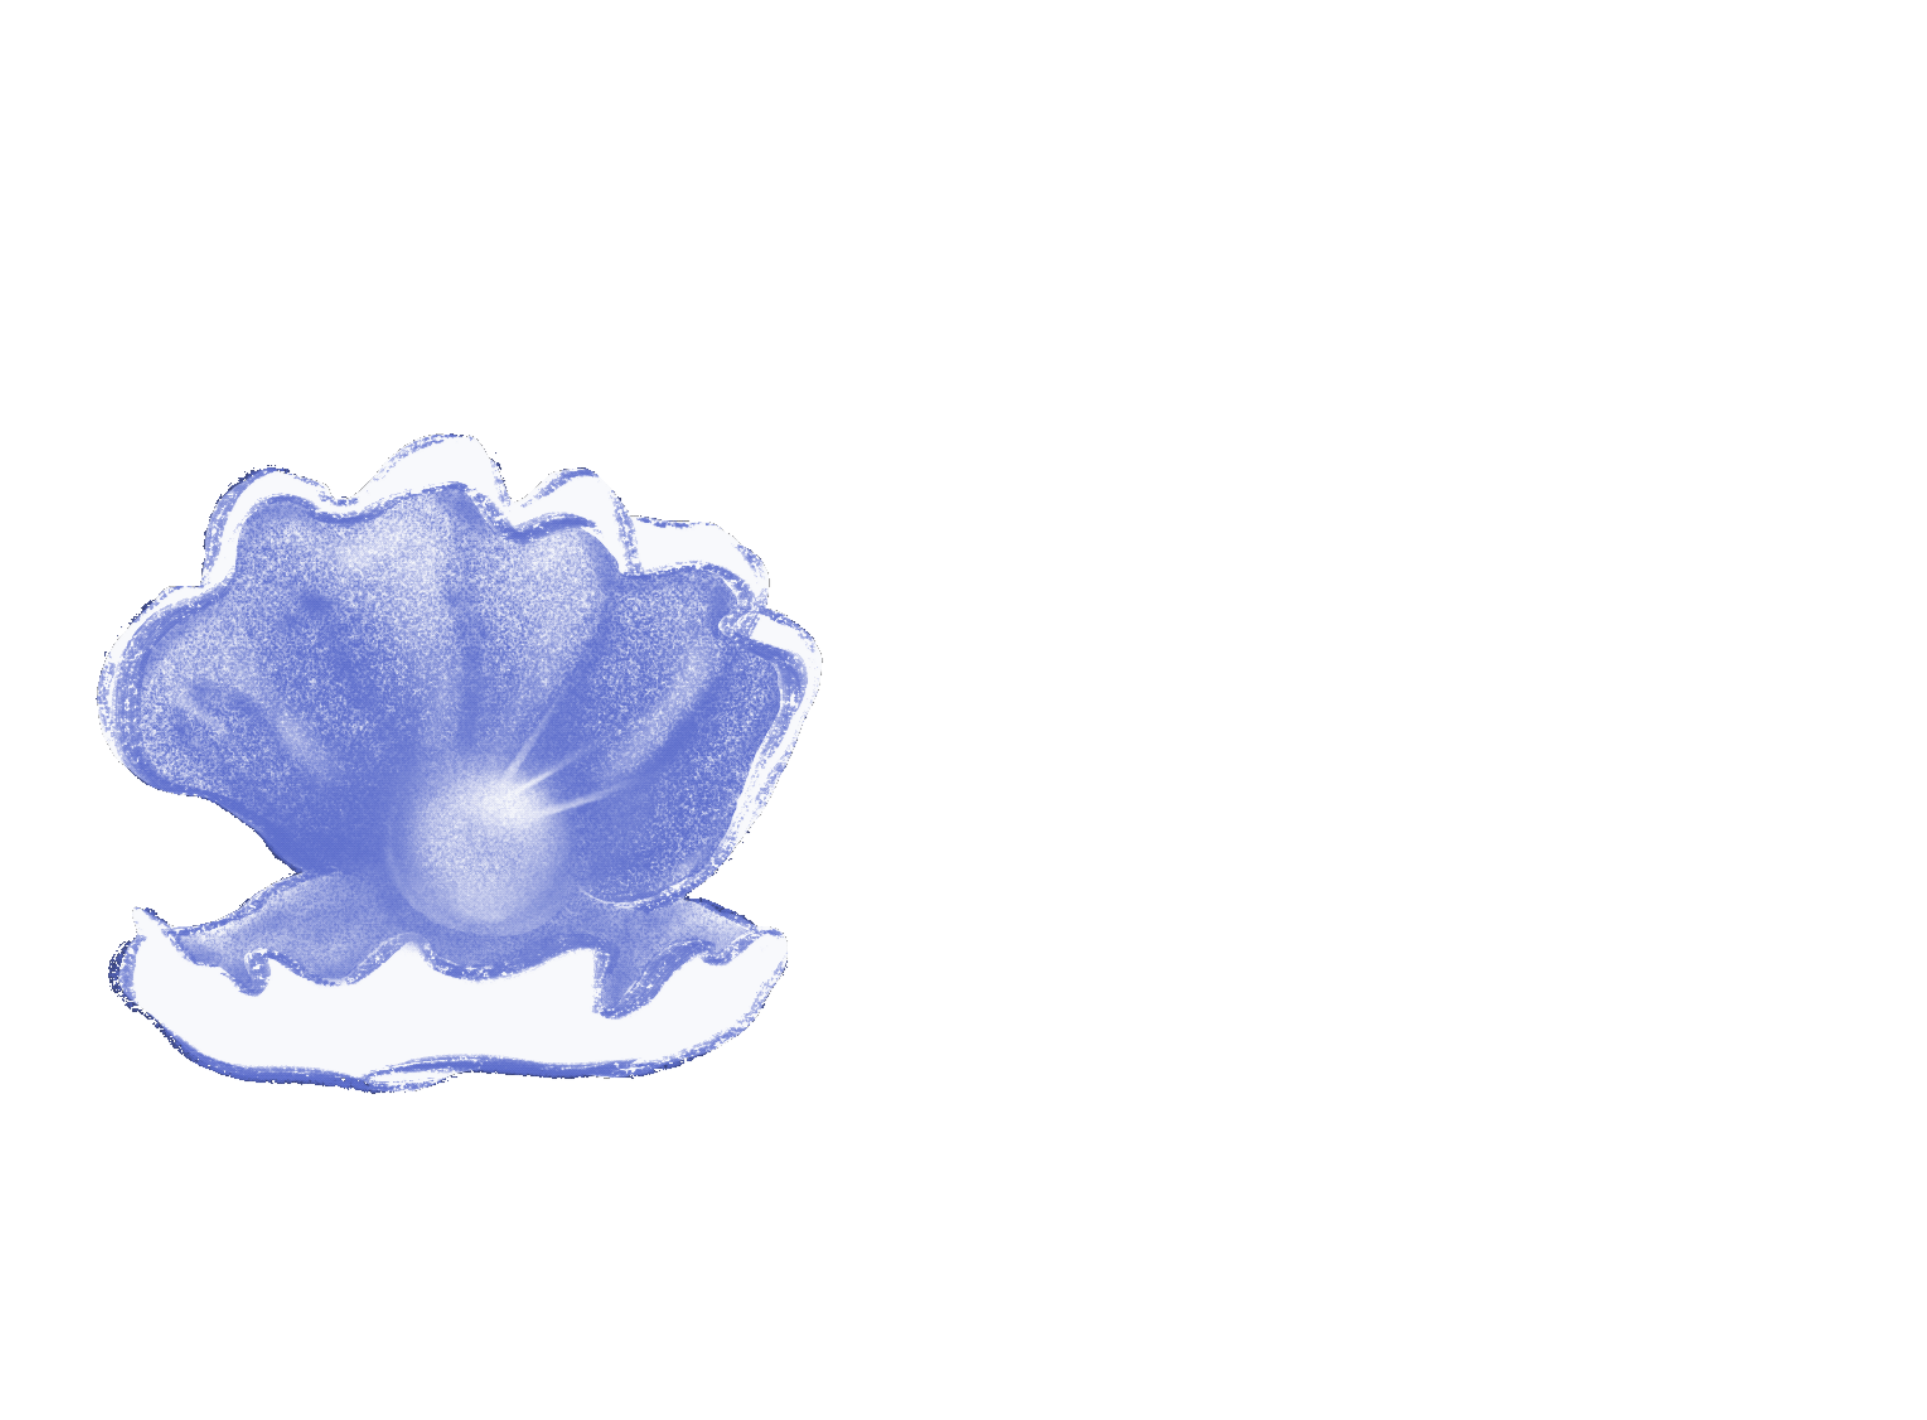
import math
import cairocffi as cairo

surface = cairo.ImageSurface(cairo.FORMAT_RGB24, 1927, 1420)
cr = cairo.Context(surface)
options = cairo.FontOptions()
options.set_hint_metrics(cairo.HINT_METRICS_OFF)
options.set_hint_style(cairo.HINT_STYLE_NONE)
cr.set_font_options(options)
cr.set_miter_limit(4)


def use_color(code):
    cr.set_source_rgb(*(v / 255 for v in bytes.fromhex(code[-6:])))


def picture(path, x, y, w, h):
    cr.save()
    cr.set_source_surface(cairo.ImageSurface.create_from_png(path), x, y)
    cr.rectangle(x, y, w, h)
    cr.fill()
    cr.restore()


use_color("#ffffff")
cr.paint()
picture("img1.png", 95, 433, 729, 662)
surface.write_to_png("result.png")
